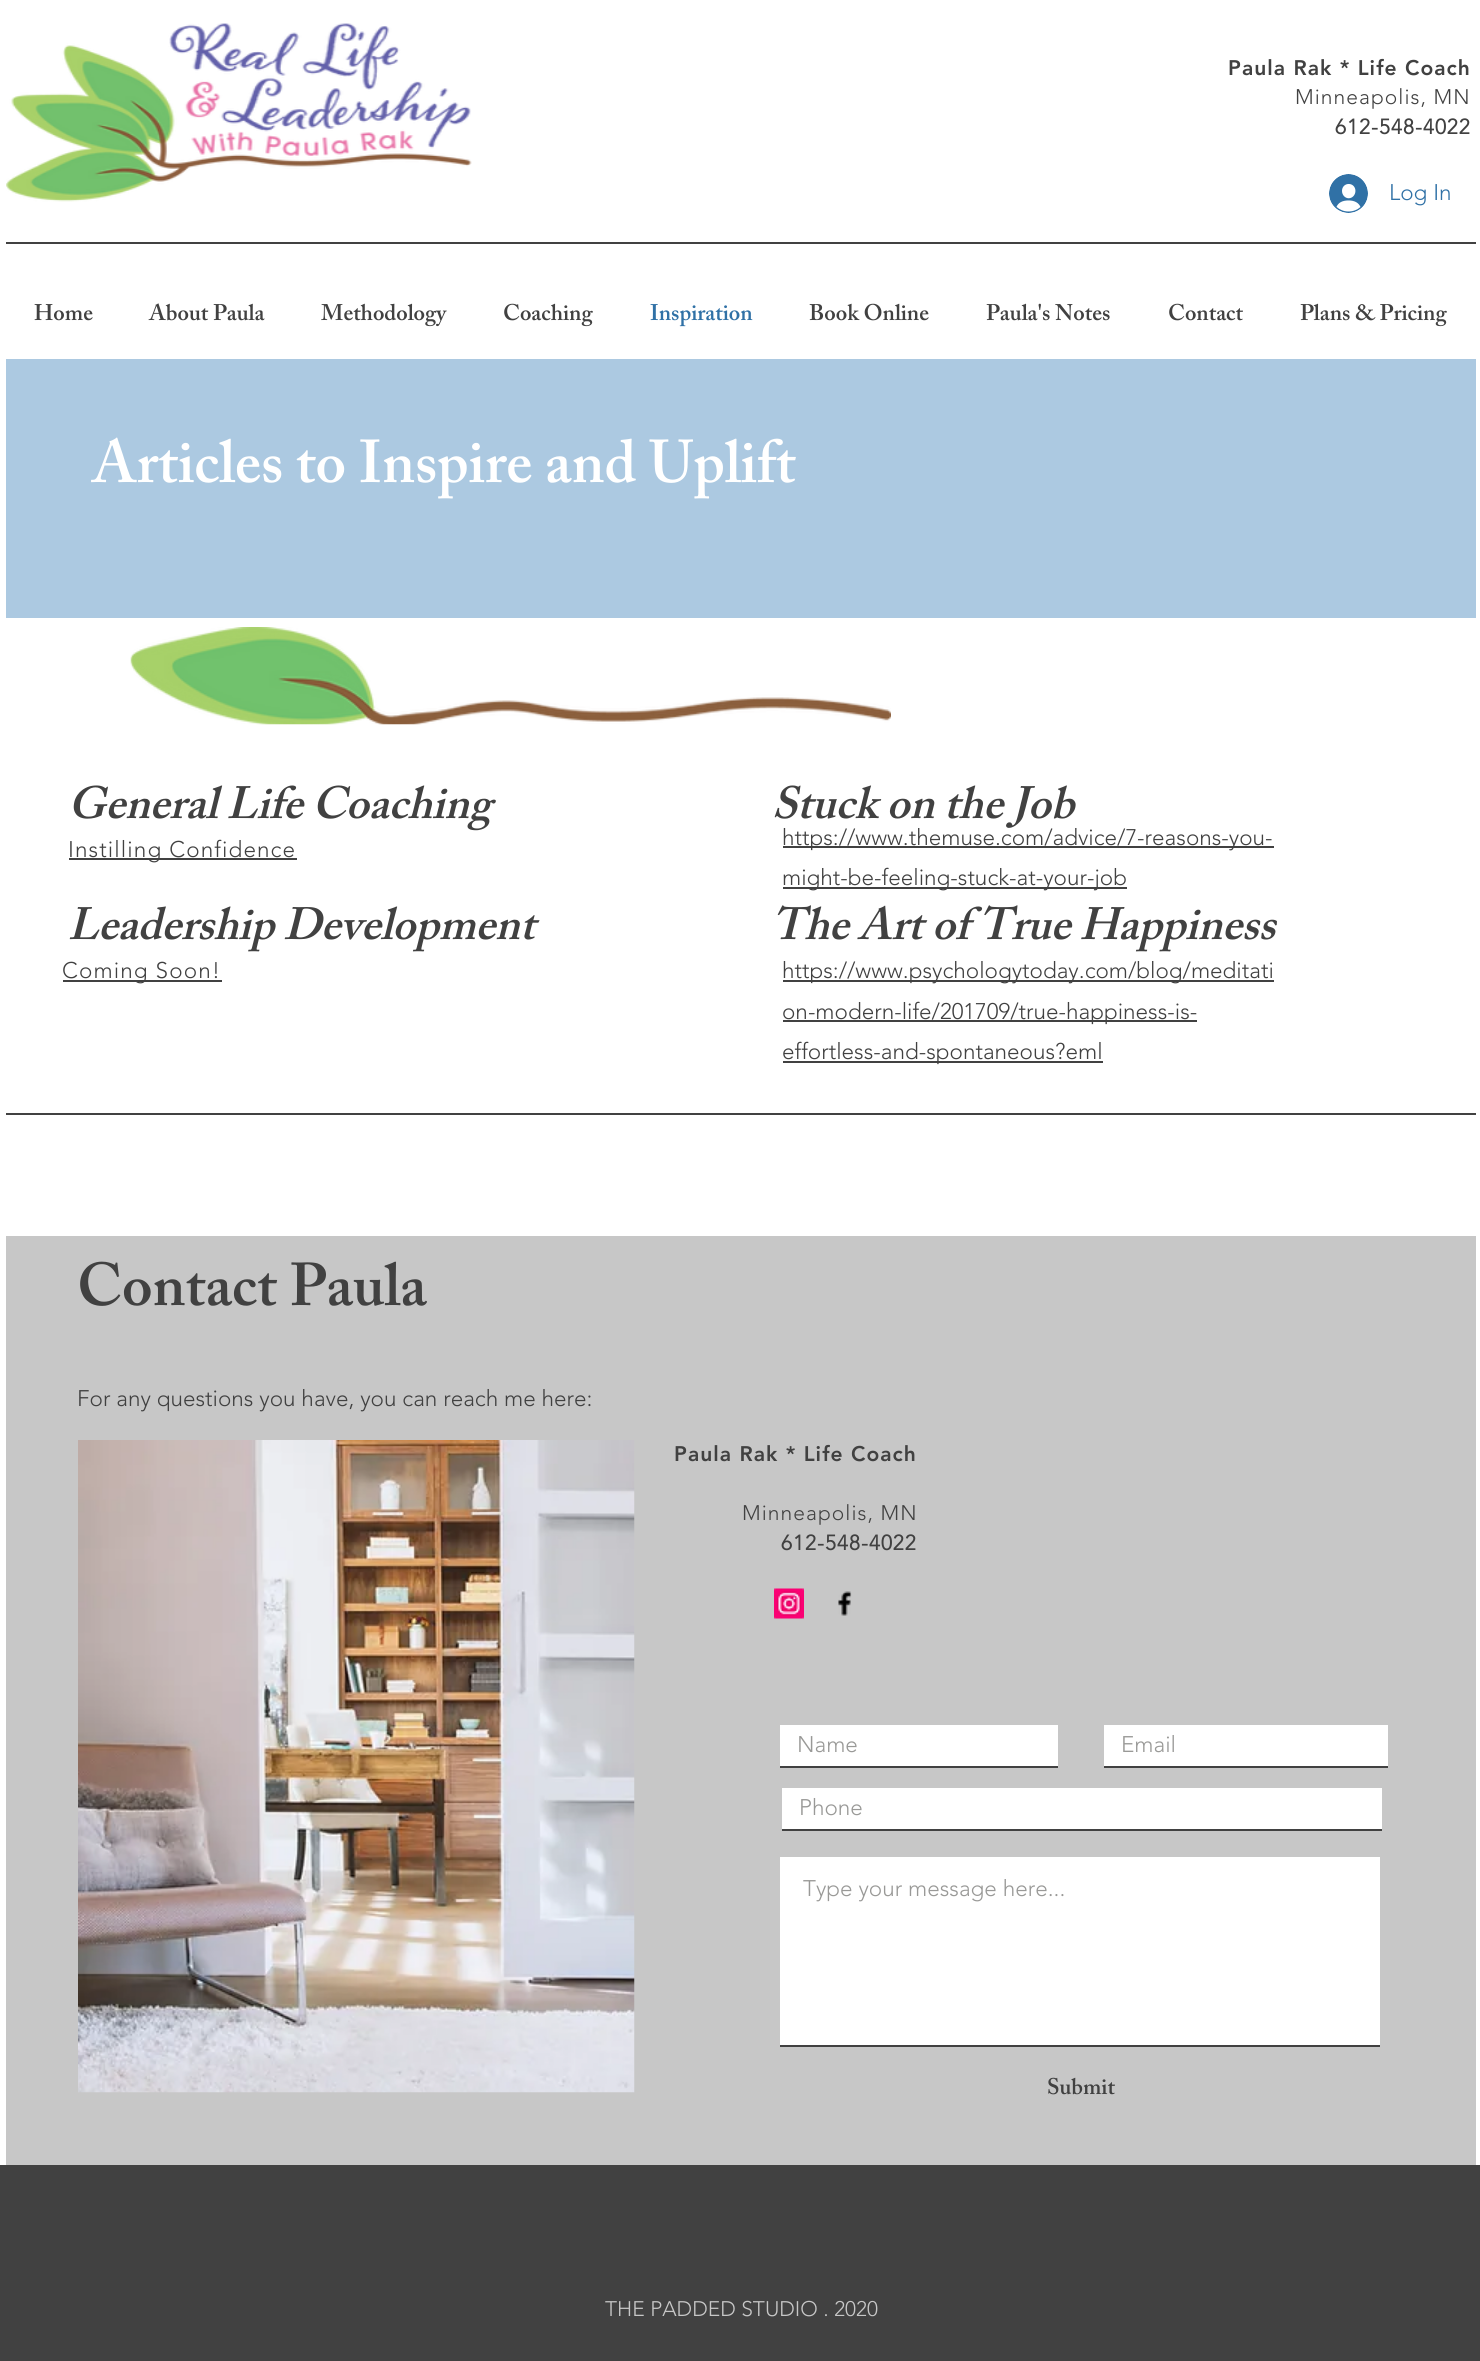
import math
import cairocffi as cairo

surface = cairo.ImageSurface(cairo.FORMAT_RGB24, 1480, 2361)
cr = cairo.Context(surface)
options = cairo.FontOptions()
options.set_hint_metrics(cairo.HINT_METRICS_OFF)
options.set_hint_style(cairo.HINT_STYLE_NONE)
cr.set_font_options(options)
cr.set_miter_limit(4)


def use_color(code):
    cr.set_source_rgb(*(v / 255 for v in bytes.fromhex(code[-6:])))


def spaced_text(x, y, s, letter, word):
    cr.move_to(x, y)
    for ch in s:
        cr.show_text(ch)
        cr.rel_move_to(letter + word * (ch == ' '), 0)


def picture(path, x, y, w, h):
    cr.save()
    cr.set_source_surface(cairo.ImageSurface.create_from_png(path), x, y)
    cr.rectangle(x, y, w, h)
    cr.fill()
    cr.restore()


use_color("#ffffff")
cr.paint()
picture("img1.png", 6, 23, 466, 179)
cr.select_font_face("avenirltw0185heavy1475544 Black")
cr.set_font_size(21)
use_color("#414141")
spaced_text(1228, 75, "Paula Rak * Life Coach", 1.05, 0)
cr.select_font_face("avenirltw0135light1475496 Light")
spaced_text(1295, 104, "Minneapolis, MN", 1.05, 0)
cr.select_font_face("avenirltw0135light1475496", cairo.FONT_SLANT_NORMAL, cairo.FONT_WEIGHT_BOLD)
spaced_text(1335, 134, "612-548-4022", 1.05, 0)
picture("img2.png", 1329, 174, 39, 39)
cr.select_font_face("avenirltw0135light1475496 Light")
cr.set_font_size(22.5)
use_color("#3071a6")
cr.move_to(1389, 200)
cr.show_text("Log In")
use_color("#414141")
cr.rectangle(6, 242, 1470, 2)
cr.fill()
cr.select_font_face("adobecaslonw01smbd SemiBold")
cr.move_to(34, 320)
cr.show_text("Home")
cr.move_to(149, 320)
cr.show_text("About Paula")
cr.move_to(321, 320)
cr.show_text("Methodology")
cr.move_to(503, 320)
cr.show_text("Coaching")
use_color("#3071a6")
cr.move_to(650, 320)
cr.show_text("Inspiration")
use_color("#414141")
cr.move_to(809, 320)
cr.show_text("Book Online")
cr.move_to(986, 320)
cr.show_text("Paula's Notes")
cr.move_to(1168, 320)
cr.show_text("Contact")
cr.move_to(1300, 320)
cr.show_text("Plans & Pricing")
use_color("#acc9e1")
cr.rectangle(6, 359, 1470, 259)
cr.fill()
cr.set_font_size(60)
use_color("#ffffff")
cr.move_to(92, 482)
cr.show_text("Articles to Inspire and Uplift")
picture("img3.png", 130, 627, 761, 98)
cr.select_font_face("adobecaslonw01smbd SemiBold", cairo.FONT_SLANT_ITALIC)
cr.set_font_size(45)
use_color("#414141")
cr.move_to(68, 818)
cr.show_text("General Life Coaching")
cr.move_to(772, 818)
cr.show_text("Stuck on the Job")
cr.rectangle(69, 858, 228, 2)
cr.fill()
cr.select_font_face("avenirltw0135light1475496 Light")
cr.set_font_size(22.5)
spaced_text(68, 857, "Instilling Confidence", 1.1, 0)
cr.rectangle(783, 846, 491, 2)
cr.fill()
cr.move_to(782, 845)
cr.show_text("https://www.themuse.com/advice/7-reasons-you-")
cr.rectangle(783, 887, 344, 2)
cr.fill()
cr.move_to(782, 885)
cr.show_text("might-be-feeling-stuck-at-your-job")
cr.select_font_face("adobecaslonw01smbd SemiBold", cairo.FONT_SLANT_ITALIC)
cr.set_font_size(45)
cr.move_to(68, 939)
cr.show_text("Leadership Development")
cr.move_to(772, 939)
cr.show_text("The Art of True Happiness")
cr.rectangle(63, 980, 159, 2)
cr.fill()
cr.select_font_face("avenirltw0135light1475496 Light")
cr.set_font_size(22.5)
spaced_text(62, 978, "Coming Soon!", 1.1, 0)
cr.rectangle(783, 980, 491, 2)
cr.fill()
cr.move_to(782, 978)
cr.show_text("https://www.psychologytoday.com/blog/meditati")
cr.rectangle(783, 1020, 414, 2)
cr.fill()
cr.move_to(782, 1019)
cr.show_text("on-modern-life/201709/true-happiness-is-")
cr.rectangle(783, 1061, 320, 2)
cr.fill()
cr.move_to(782, 1059)
cr.show_text("effortless-and-spontaneous?eml")
cr.rectangle(6, 1113, 1470, 2)
cr.fill()
use_color("#c7c7c7")
cr.rectangle(6, 1236, 1470, 929)
cr.fill()
cr.select_font_face("adobecaslonw01smbd SemiBold")
cr.set_font_size(60)
use_color("#414141")
cr.move_to(77, 1305)
cr.show_text("Contact Paula")
cr.select_font_face("avenirltw0135light1475496 Light")
cr.set_font_size(22.5)
cr.move_to(77, 1406)
cr.show_text("For any questions you have, you can reach me here:")
picture("img4.png", 78, 1440, 557, 653)
cr.select_font_face("avenirltw0185heavy1475544 Black")
cr.set_font_size(21)
spaced_text(674, 1461, "Paula Rak * Life Coach", 1.05, 0)
cr.select_font_face("avenirltw0135light1475496 Light")
spaced_text(742, 1520, "Minneapolis, MN", 1.05, 0)
cr.select_font_face("avenirltw0135light1475496", cairo.FONT_SLANT_NORMAL, cairo.FONT_WEIGHT_BOLD)
spaced_text(781, 1550, "612-548-4022", 1.05, 0)
picture("img5.png", 774, 1588, 30, 31)
picture("img6.png", 838, 1591, 14, 25)
use_color("#ffffff")
cr.rectangle(780, 1725, 278, 41)
cr.fill()
use_color("#414141")
cr.rectangle(780, 1766, 278, 2)
cr.fill()
cr.select_font_face("avenirltw0135light1475496 Light")
cr.set_font_size(22.5)
use_color("#999997")
cr.move_to(797, 1752)
cr.show_text("Name")
use_color("#ffffff")
cr.rectangle(1104, 1725, 284, 41)
cr.fill()
use_color("#414141")
cr.rectangle(1104, 1766, 284, 2)
cr.fill()
use_color("#999997")
cr.move_to(1121, 1752)
cr.show_text("Email")
use_color("#ffffff")
cr.rectangle(782, 1788, 600, 41)
cr.fill()
use_color("#414141")
cr.rectangle(782, 1829, 600, 2)
cr.fill()
use_color("#999997")
cr.move_to(799, 1815)
cr.show_text("Phone")
use_color("#ffffff")
cr.rectangle(780, 1857, 600, 188)
cr.fill()
use_color("#414141")
cr.rectangle(780, 2045, 600, 2)
cr.fill()
use_color("#999997")
cr.move_to(803, 1896)
cr.show_text("Type your message here...")
cr.select_font_face("adobecaslonw01smbd SemiBold")
use_color("#414141")
cr.move_to(1047, 2094)
cr.show_text("Submit")
cr.rectangle(0, 2165, 1480, 196)
cr.fill()
cr.select_font_face("avenirltw0135light1475496 Light")
cr.set_font_size(21)
use_color("#c7c7c7")
cr.move_to(605, 2316)
cr.show_text("THE PADDED STUDIO . 2020")
surface.write_to_png("result.png")
